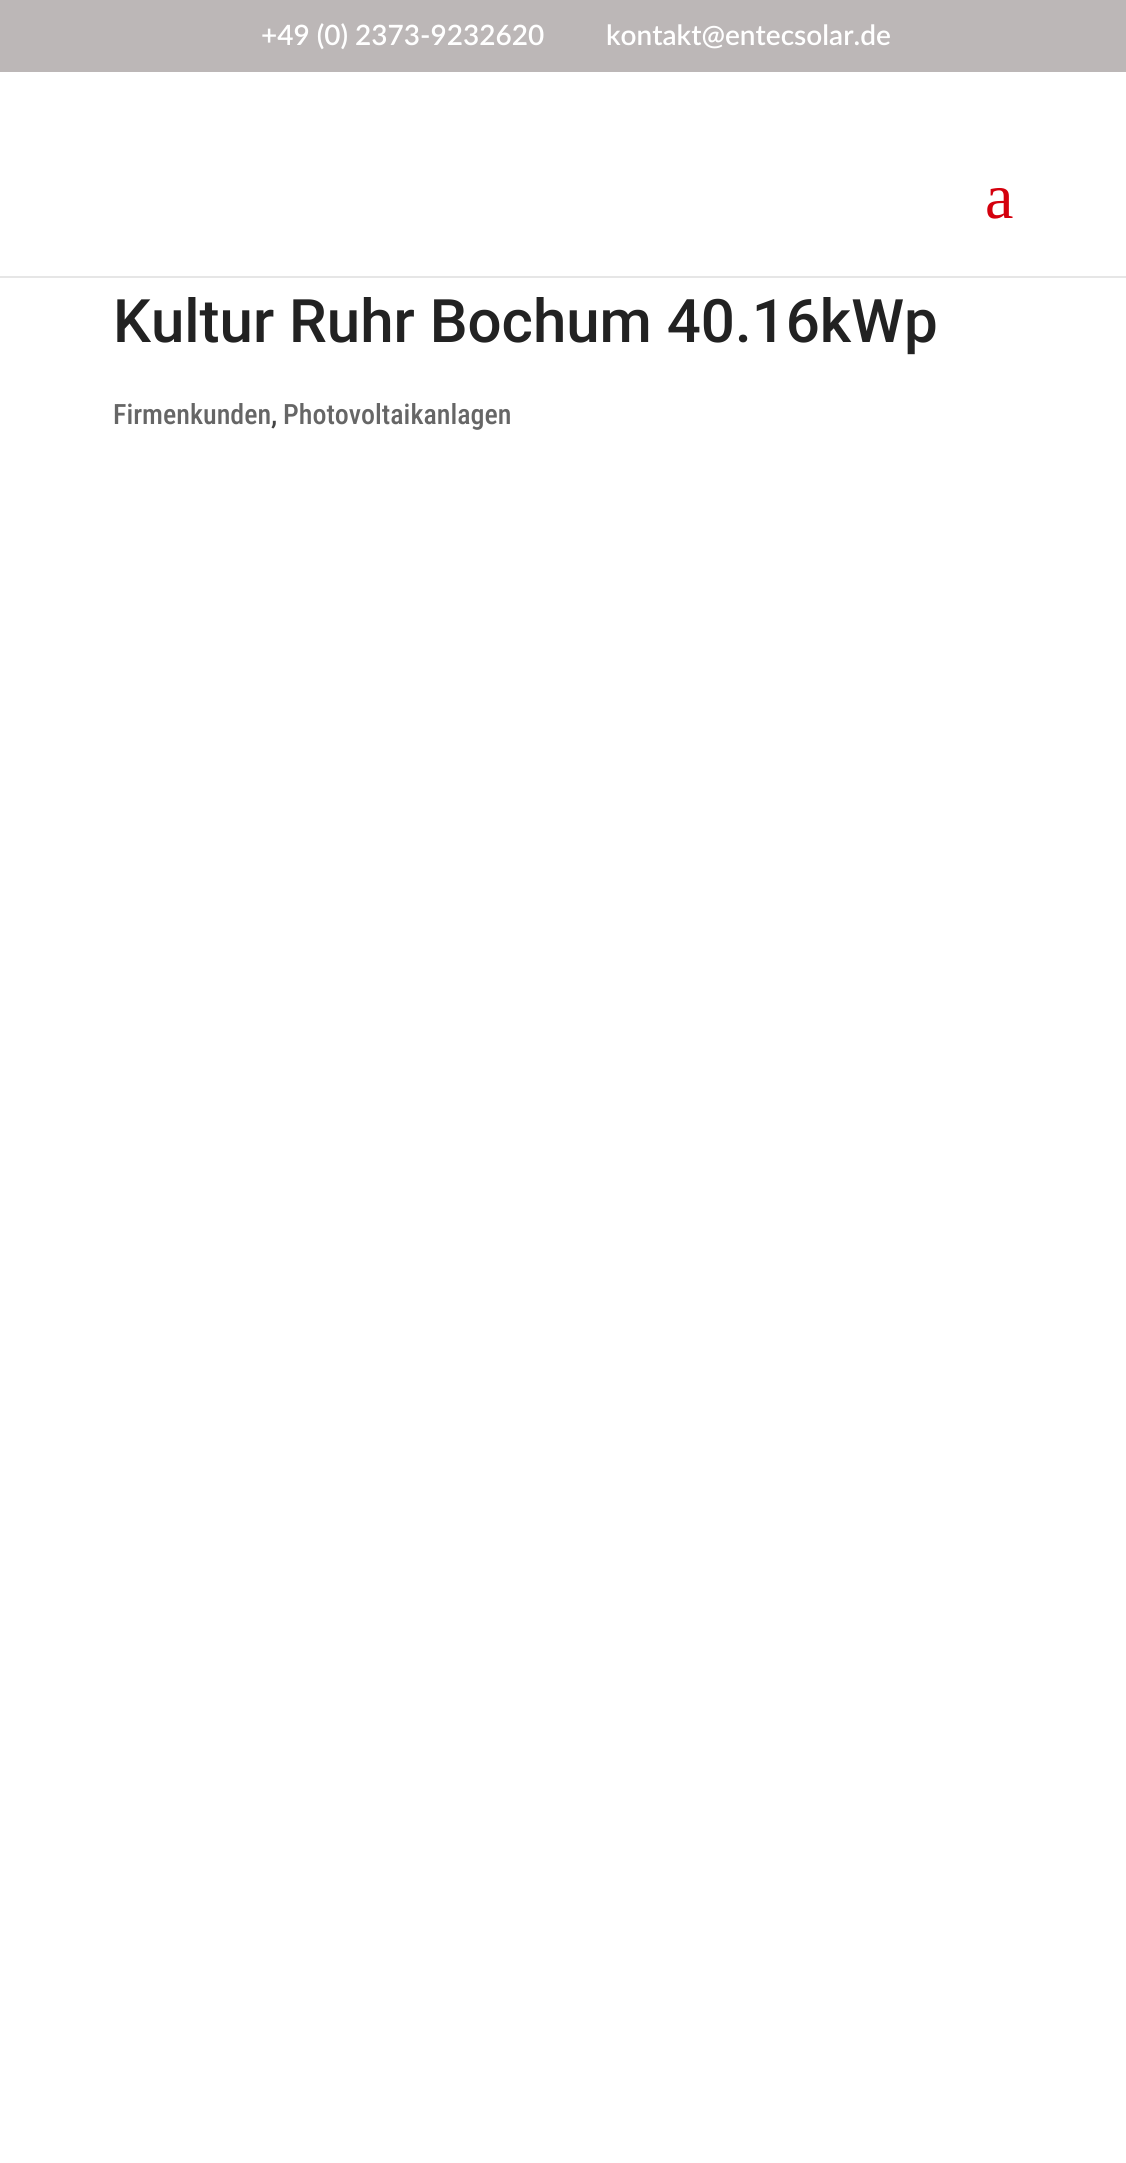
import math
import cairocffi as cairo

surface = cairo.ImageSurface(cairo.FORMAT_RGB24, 1126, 2163)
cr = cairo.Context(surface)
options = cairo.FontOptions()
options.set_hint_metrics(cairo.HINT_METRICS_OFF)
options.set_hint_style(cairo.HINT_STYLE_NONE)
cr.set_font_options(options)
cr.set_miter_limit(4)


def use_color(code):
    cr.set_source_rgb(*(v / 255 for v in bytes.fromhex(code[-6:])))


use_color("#ffffff")
cr.paint()
use_color("#bcb7b7")
cr.rectangle(0, 0, 1126, 72)
cr.fill()
cr.select_font_face("Lato SemiBold")
cr.set_font_size(28)
use_color("#ffffff")
cr.move_to(261, 45)
cr.show_text("+49 (0) 2373-9232620")
cr.move_to(606, 45)
cr.show_text("kontakt@entecsolar.de")
use_color("#e6e6e6")
cr.rectangle(0, 276, 1126, 2)
cr.fill()
cr.select_font_face("Liberation Serif")
cr.set_font_size(64)
use_color("#d4000d")
cr.move_to(985, 218)
cr.show_text("a")
cr.select_font_face("Roboto Medium")
cr.set_font_size(60)
use_color("#222222")
cr.move_to(113, 342)
cr.show_text("Kultur Ruhr Bochum 40.16kWp")
cr.select_font_face("Roboto Condensed Medium")
cr.set_font_size(28)
use_color("#666666")
cr.move_to(113, 424)
cr.show_text("Firmenkunden")
use_color("#444444")
cr.move_to(271, 424)
cr.show_text(",")
use_color("#666666")
cr.move_to(283, 424)
cr.show_text("Photovoltaikanlagen")
surface.write_to_png("result.png")
